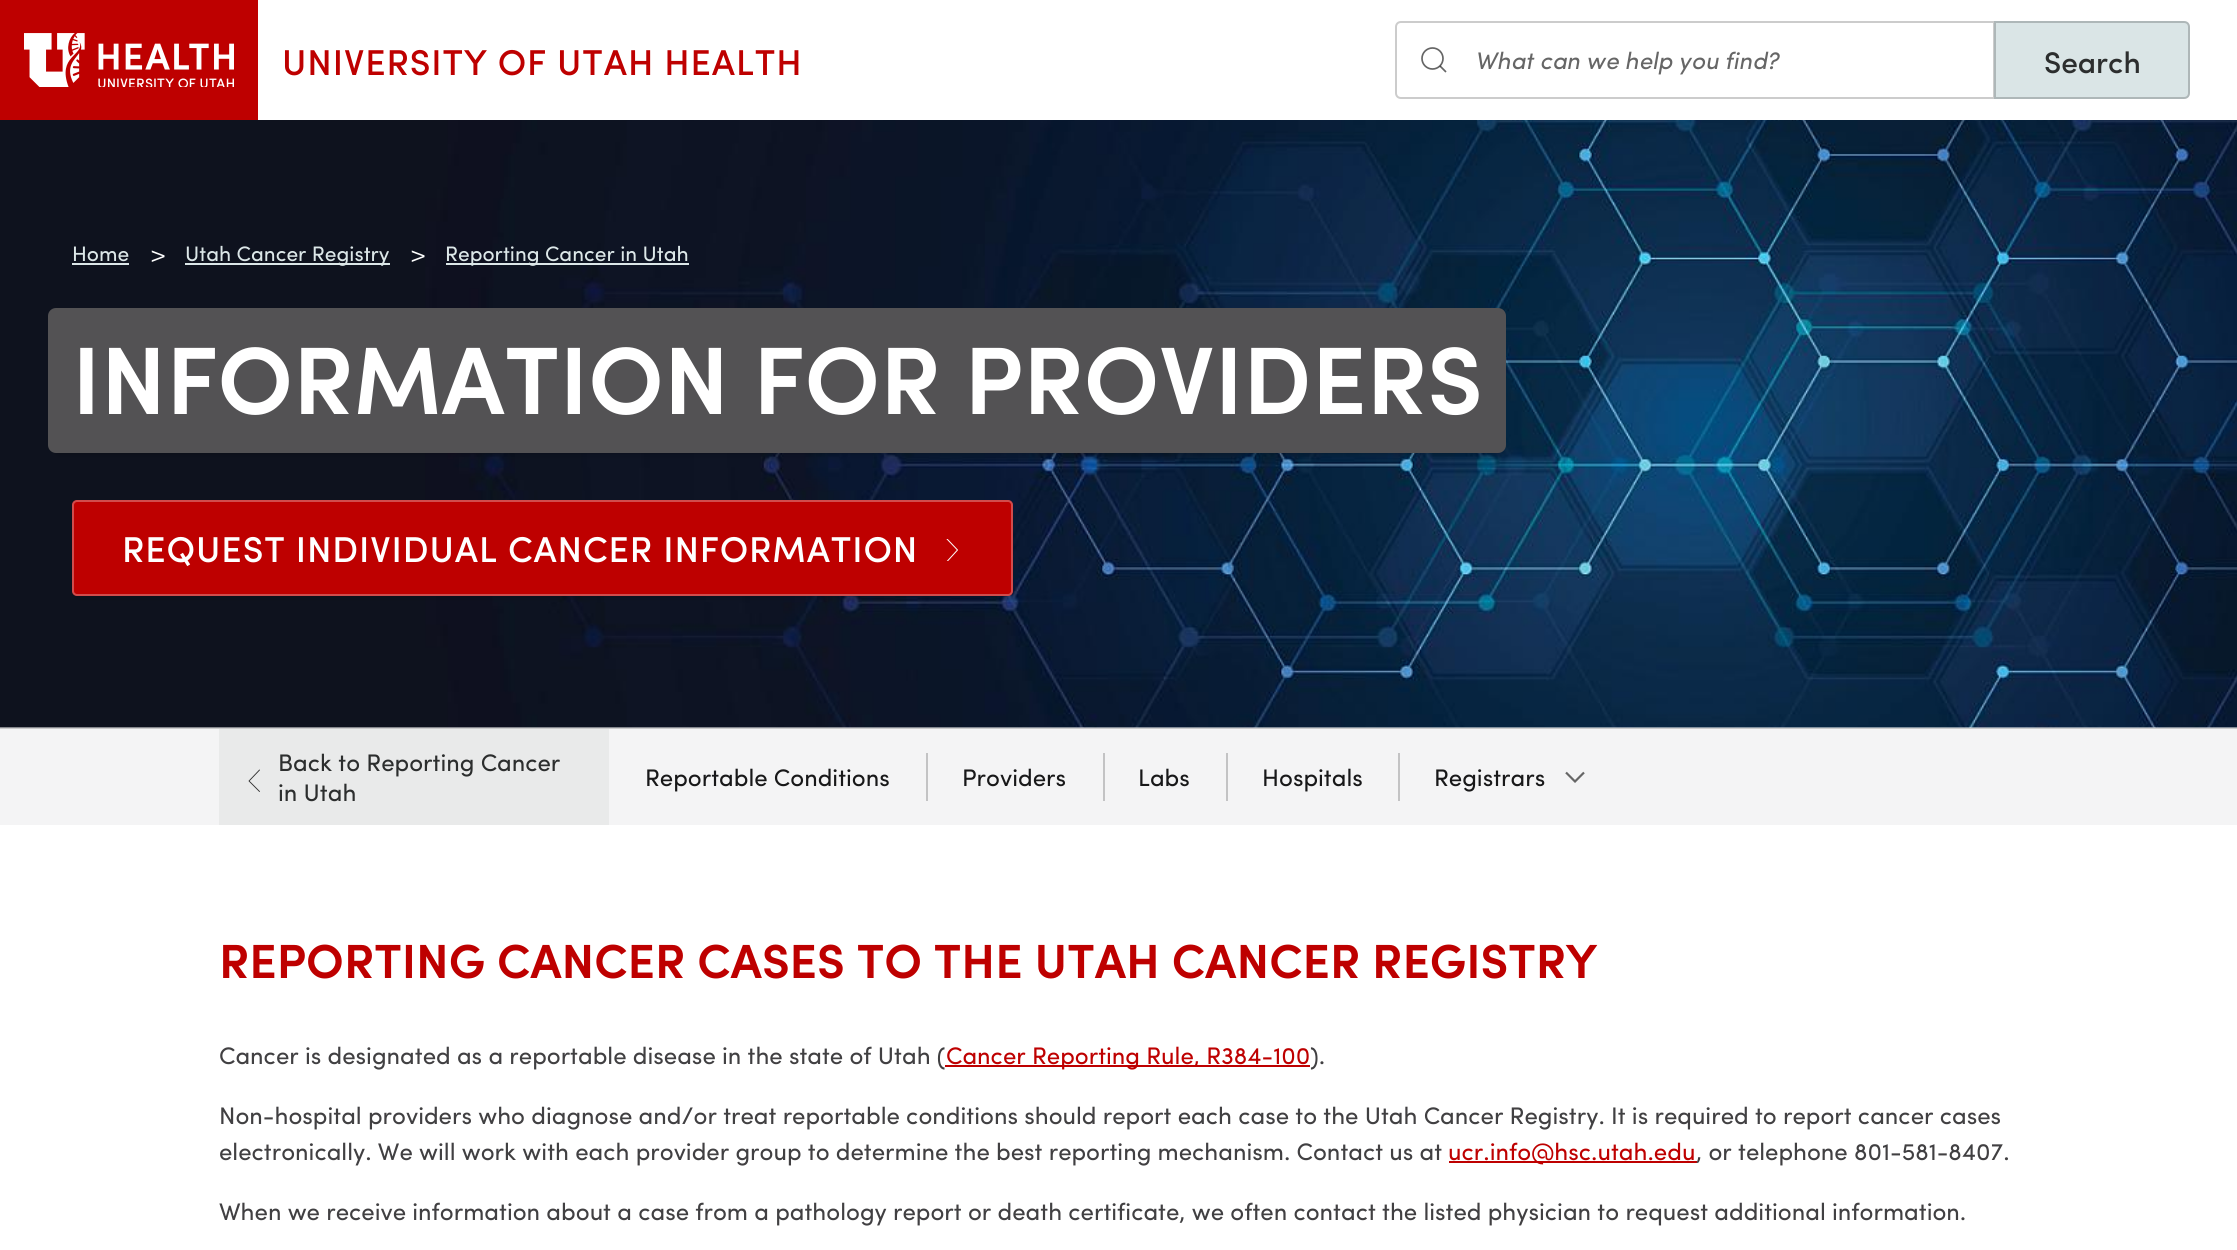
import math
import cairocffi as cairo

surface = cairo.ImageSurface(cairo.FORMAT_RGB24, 2237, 1250)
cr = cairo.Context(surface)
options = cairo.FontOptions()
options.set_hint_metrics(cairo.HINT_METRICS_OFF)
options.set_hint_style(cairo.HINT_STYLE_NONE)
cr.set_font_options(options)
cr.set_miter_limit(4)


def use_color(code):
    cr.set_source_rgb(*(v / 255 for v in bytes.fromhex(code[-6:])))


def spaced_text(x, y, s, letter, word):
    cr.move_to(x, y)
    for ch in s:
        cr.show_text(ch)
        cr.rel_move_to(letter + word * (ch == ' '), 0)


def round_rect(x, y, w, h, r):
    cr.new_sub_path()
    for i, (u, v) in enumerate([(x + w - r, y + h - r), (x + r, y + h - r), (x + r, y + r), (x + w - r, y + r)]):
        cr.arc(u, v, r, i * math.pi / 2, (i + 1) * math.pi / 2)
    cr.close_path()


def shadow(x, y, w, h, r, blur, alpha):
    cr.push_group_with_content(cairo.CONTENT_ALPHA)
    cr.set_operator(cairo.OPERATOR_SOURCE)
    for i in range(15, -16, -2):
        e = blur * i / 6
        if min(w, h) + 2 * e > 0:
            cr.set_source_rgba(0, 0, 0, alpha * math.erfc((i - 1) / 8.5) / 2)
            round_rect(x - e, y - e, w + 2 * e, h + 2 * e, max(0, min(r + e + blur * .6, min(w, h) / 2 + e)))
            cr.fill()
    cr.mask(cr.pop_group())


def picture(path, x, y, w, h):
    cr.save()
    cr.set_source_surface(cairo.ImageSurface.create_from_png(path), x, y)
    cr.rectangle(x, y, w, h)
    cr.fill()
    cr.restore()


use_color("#ffffff")
cr.paint()
use_color("#be0000")
cr.rectangle(0, 0, 258, 120)
cr.fill()
picture("img1.png", 24, 33, 210, 54)
cr.select_font_face("Sofia Medium")
cr.set_font_size(36)
spaced_text(282, 75, "UNIVERSITY OF UTAH HEALTH", 0.9, 0)
cr.new_path()
cr.move_to(1401, 22)
cr.line_to(1994, 22)
cr.line_to(1994, 98)
cr.line_to(1401, 98)
cr.curve_to(1398, 98, 1396, 96, 1396, 93)
cr.line_to(1396, 27)
cr.curve_to(1396, 24, 1398, 22, 1401, 22)
cr.close_path()
use_color("#cccccc")
cr.stroke()
cr.arc(1432.5, 58.5, 10.5, 0, 2 * math.pi)
use_color("#666666")
cr.set_line_width(1.7)
cr.stroke()
cr.new_path()
cr.move_to(1440, 66)
cr.line_to(1446, 72)
cr.close_path()
cr.set_source_rgba(0, 0, 0, 0.6)
cr.stroke()
cr.select_font_face("Sofia", cairo.FONT_SLANT_ITALIC)
cr.set_font_size(24)
use_color("#666666")
cr.move_to(1475, 69)
cr.show_text("What can we help you find?")
use_color("#dae5e6")
cr.new_path()
cr.move_to(1994, 21)
cr.line_to(2184, 21)
cr.curve_to(2187.5, 21, 2190, 23.5, 2190, 27)
cr.line_to(2190, 93)
cr.curve_to(2190, 96.5, 2187.5, 99, 2184, 99)
cr.line_to(1994, 99)
cr.close_path()
cr.fill()
cr.new_path()
cr.move_to(1995, 22)
cr.line_to(2184, 22)
cr.curve_to(2187, 22, 2189, 24, 2189, 27)
cr.line_to(2189, 93)
cr.curve_to(2189, 96, 2187, 98, 2184, 98)
cr.line_to(1995, 98)
cr.close_path()
cr.set_source_rgba(0, 0, 0, 0.2)
cr.set_line_width(2)
cr.stroke()
cr.select_font_face("Sofia Medium")
cr.set_font_size(30)
use_color("#2c2e2e")
cr.move_to(2044, 73)
cr.show_text("Search")
use_color("#cccccc")
cr.rectangle(0, 728, 2237, 1)
cr.fill()
picture("img2.png", 0, 120, 2237, 608)
cr.select_font_face("Sofia")
cr.set_font_size(21)
use_color("#dce7e8")
cr.move_to(72, 261)
cr.show_text("Home")
cr.rectangle(72, 263, 57, 2)
cr.fill()
cr.select_font_face("Sofia Light")
cr.set_font_size(25)
use_color("#ffffff")
spaced_text(150, 263, ">", -8, 0)
use_color("#dce7e8")
cr.rectangle(185, 263, 205, 2)
cr.fill()
cr.select_font_face("Sofia")
cr.set_font_size(21)
cr.move_to(185, 261)
cr.show_text("Utah Cancer Registry")
cr.select_font_face("Sofia Light")
cr.set_font_size(25)
use_color("#ffffff")
spaced_text(410, 263, ">", -8, 0)
use_color("#dce7e8")
cr.rectangle(446, 263, 243, 2)
cr.fill()
cr.select_font_face("Sofia")
cr.set_font_size(21)
cr.move_to(445, 261)
cr.show_text("Reporting Cancer in Utah")
use_color("#000000")
shadow(59, 326, 1437, 124, 0, 4.5, 0.6)
use_color("#535254")
round_rect(48, 308, 1458, 145, 8)
cr.fill()
cr.select_font_face("Sofia SemiBold")
cr.set_font_size(96)
use_color("#ffffff")
cr.move_to(72, 414)
cr.show_text("INFORMATION FOR PROVIDERS")
use_color("#000000")
shadow(72, 503, 941, 96, 5, 1.5, 0.1)
use_color("#be0000")
round_rect(72, 500, 941, 96, 5)
cr.fill()
round_rect(73, 501, 939, 94, 4)
cr.set_source_rgba(1, 1, 1, 0.3)
cr.stroke()
cr.select_font_face("Sofia Medium")
cr.set_font_size(36)
use_color("#ffffff")
spaced_text(122, 562, "REQUEST INDIVIDUAL CANCER INFORMATION", 0.9, 0)
cr.save()
cr.rectangle(941, 539, 22, 22)
cr.clip()
cr.new_path()
cr.move_to(947, 539)
cr.line_to(957.5, 550)
cr.line_to(947, 561.5)
cr.set_line_width(1)
cr.set_line_cap(cairo.LINE_CAP_ROUND)
cr.set_line_join(cairo.LINE_JOIN_ROUND)
cr.stroke()
cr.restore()
use_color("#f4f4f5")
cr.rectangle(0, 729, 2237, 96)
cr.fill()
use_color("#e9eaea")
cr.rectangle(219, 729, 390, 96)
cr.fill()
cr.new_path()
cr.move_to(259.5, 791.5)
cr.line_to(249, 781)
cr.line_to(259.5, 770)
use_color("#2f2f2f")
cr.set_line_width(0.9)
cr.set_line_cap(cairo.LINE_CAP_ROUND)
cr.set_line_join(cairo.LINE_JOIN_ROUND)
cr.stroke()
cr.select_font_face("Sofia")
cr.set_font_size(24)
use_color("#2c2e2e")
cr.move_to(278, 771)
cr.show_text("Back to Reporting Cancer")
cr.move_to(278, 801)
cr.show_text("in Utah")
use_color("#181819")
cr.move_to(645, 786)
cr.show_text("Reportable Conditions")
use_color("#c3c3c4")
cr.rectangle(926, 753, 2, 48)
cr.fill()
use_color("#181819")
cr.move_to(962, 786)
cr.show_text("Providers")
use_color("#c3c3c4")
cr.rectangle(1103, 753, 2, 48)
cr.fill()
use_color("#181819")
cr.move_to(1138, 786)
cr.show_text("Labs")
use_color("#c3c3c4")
cr.rectangle(1226, 753, 2, 48)
cr.fill()
use_color("#181819")
cr.move_to(1262, 786)
cr.show_text("Hospitals")
use_color("#c3c3c4")
cr.rectangle(1398, 753, 2, 48)
cr.fill()
use_color("#181819")
cr.move_to(1434, 786)
cr.show_text("Registrars")
cr.new_path()
cr.move_to(1566, 772.5)
cr.line_to(1575, 781.5)
cr.line_to(1584, 772.5)
use_color("#666666")
cr.set_line_width(2.2)
cr.set_line_cap(cairo.LINE_CAP_BUTT)
cr.set_line_join(cairo.LINE_JOIN_MITER)
cr.stroke()
cr.select_font_face("Sofia SemiBold")
cr.set_font_size(48)
use_color("#be0000")
cr.move_to(219, 978)
cr.show_text("REPORTING CANCER CASES TO THE UTAH CANCER REGISTRY")
cr.select_font_face("Sofia")
cr.set_font_size(24)
use_color("#414042")
cr.move_to(219, 1064)
cr.show_text("Cancer is designated as a reportable disease in the state of Utah (")
use_color("#be0000")
cr.rectangle(945, 1065, 365, 2)
cr.fill()
cr.move_to(946, 1064)
cr.show_text("Cancer Reporting Rule, R384-100")
use_color("#414042")
cr.move_to(1310, 1064)
cr.show_text(").")
cr.move_to(219, 1124)
cr.show_text("Non-hospital providers who diagnose and/or treat reportable conditions should report each case to the Utah Cancer Registry. It is required to report cancer cases")
cr.move_to(219, 1160)
cr.show_text("electronically. We will work with each provider group to determine the best reporting mechanism. Contact us at")
use_color("#be0000")
cr.rectangle(1449, 1161, 248, 2)
cr.fill()
cr.move_to(1448, 1160)
cr.show_text("ucr.info@hsc.utah.edu")
use_color("#414042")
cr.move_to(1696, 1160)
cr.show_text(", or telephone 801-581-8407.")
cr.move_to(219, 1220)
cr.show_text("When we receive information about a case from a pathology report or death certificate, we often contact the listed physician to request additional information.")
surface.write_to_png("result.png")
